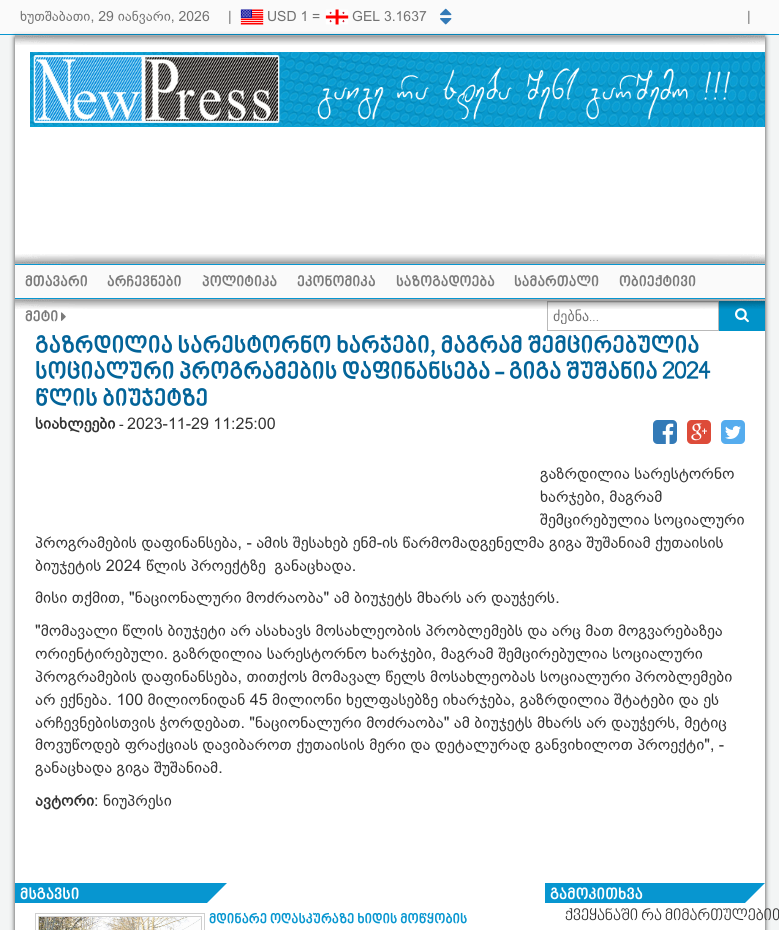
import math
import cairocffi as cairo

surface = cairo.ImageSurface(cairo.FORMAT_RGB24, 779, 930)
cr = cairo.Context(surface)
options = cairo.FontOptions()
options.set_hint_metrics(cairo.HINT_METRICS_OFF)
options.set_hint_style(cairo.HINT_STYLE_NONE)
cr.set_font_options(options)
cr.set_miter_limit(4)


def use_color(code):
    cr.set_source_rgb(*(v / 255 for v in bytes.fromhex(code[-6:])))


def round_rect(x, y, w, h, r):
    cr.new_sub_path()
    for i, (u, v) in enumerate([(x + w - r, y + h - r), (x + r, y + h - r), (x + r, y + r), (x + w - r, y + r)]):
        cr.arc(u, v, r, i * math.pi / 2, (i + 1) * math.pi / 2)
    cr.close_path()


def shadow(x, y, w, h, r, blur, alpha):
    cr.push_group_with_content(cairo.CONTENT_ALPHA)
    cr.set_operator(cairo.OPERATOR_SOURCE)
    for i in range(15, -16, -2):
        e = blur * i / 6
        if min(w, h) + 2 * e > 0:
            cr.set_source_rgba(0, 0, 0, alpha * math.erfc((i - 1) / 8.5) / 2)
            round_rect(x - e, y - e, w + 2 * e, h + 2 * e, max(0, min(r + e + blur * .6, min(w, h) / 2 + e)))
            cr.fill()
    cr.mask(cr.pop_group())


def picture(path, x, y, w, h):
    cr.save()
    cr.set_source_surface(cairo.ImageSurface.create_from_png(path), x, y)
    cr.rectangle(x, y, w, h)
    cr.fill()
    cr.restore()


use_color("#f3f5f5")
cr.paint()
use_color("#fafafa")
cr.rectangle(0, 0, 779, 34)
cr.fill()
use_color("#0796d0")
cr.rectangle(0, 34, 779, 1)
cr.fill()
cr.select_font_face("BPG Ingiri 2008")
cr.set_font_size(14)
use_color("#727272")
cr.move_to(20, 21)
cr.show_text("ხუთშაბათი, 29 იანვარი, 2026")
cr.move_to(228, 21)
cr.show_text("|")
picture("img1.png", 240, 9, 24, 16)
cr.move_to(267, 21)
cr.show_text("USD 1 =")
picture("img2.png", 325, 9, 24, 16)
cr.move_to(352, 21)
cr.show_text("GEL 3.1637")
picture("img3.png", 440, 8, 12, 8)
picture("img4.png", 440, 18, 12, 7)
cr.move_to(747, 21)
cr.show_text("|")
use_color("#000000")
shadow(15, 37, 750, 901, 0, 2.5, 0.75)
use_color("#ffffff")
cr.rectangle(15, 35, 750, 895)
cr.fill()
picture("img5.png", 15, 35, 750, 10)
picture("img6.png", 30, 52, 735, 75)
picture("img7.png", 15, 254, 750, 10)
use_color("#fafafa")
cr.rectangle(15, 265, 750, 33)
cr.fill()
use_color("#0796d0")
cr.rectangle(15, 264, 750, 1)
cr.fill()
cr.rectangle(15, 298, 750, 1)
cr.fill()
cr.select_font_face("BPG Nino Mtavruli", cairo.FONT_SLANT_NORMAL, cairo.FONT_WEIGHT_BOLD)
cr.set_font_size(15)
use_color("#7a7a7a")
cr.move_to(25, 287)
cr.show_text("მთავარი")
cr.move_to(107, 287)
cr.show_text("არჩევნები")
cr.move_to(202, 287)
cr.show_text("პოლიტიკა")
cr.move_to(297, 287)
cr.show_text("ეკონომიკა")
cr.move_to(396, 287)
cr.show_text("საზოგადოება")
cr.move_to(514, 287)
cr.show_text("სამართალი")
cr.move_to(619, 287)
cr.show_text("ობიექტივი")
cr.move_to(25, 322)
cr.show_text("მეტი")
picture("img8.png", 61, 312, 5, 9)
use_color("#ececec")
cr.rectangle(548, 302, 170, 1)
cr.fill()
cr.rectangle(547.5, 301.5, 171, 29)
use_color("#b9b9b9")
cr.set_line_width(1)
cr.stroke()
cr.save()
cr.rectangle(553, 308, 160, 16)
cr.clip()
cr.select_font_face("DejaVu Sans")
cr.set_font_size(14)
use_color("#727272")
cr.move_to(553, 321)
cr.show_text("ძებნა")
cr.restore()
cr.select_font_face("Roboto Light")
cr.set_font_size(14)
use_color("#727272")
cr.move_to(589, 321)
cr.show_text("...")
use_color("#0093c9")
cr.rectangle(719, 301, 46, 30)
cr.fill()
picture("img9.png", 735, 308, 14, 15)
picture("img10.png", 15, 299, 750, 10)
cr.select_font_face("BPG Nino Mtavruli", cairo.FONT_SLANT_NORMAL, cairo.FONT_WEIGHT_BOLD)
cr.set_font_size(24)
use_color("#036499")
cr.move_to(35, 354)
cr.show_text("გაზრდილია სარესტორნო ხარჯები, მაგრამ შემცირებულია")
cr.move_to(35, 380)
cr.show_text("სოციალური პროგრამების დაფინანსება - გიგა შუშანია 2024")
cr.move_to(35, 407)
cr.show_text("წლის ბიუჯეტზე")
cr.select_font_face("BPG Ingiri 2008", cairo.FONT_SLANT_NORMAL, cairo.FONT_WEIGHT_BOLD)
cr.set_font_size(16)
use_color("#333333")
cr.move_to(35, 429)
cr.show_text("სიახლეები")
cr.select_font_face("BPG Ingiri 2008")
cr.set_font_size(14)
cr.move_to(119, 429)
cr.show_text("-")
cr.set_font_size(16)
cr.move_to(127, 429)
cr.show_text("2023-11-29 11:25:00")
picture("img11.png", 653, 420, 24, 24)
picture("img12.png", 687, 420, 24, 24)
picture("img13.png", 721, 420, 24, 24)
cr.move_to(540, 479)
cr.show_text("გაზრდილია სარესტორნო")
cr.move_to(540, 502)
cr.show_text("ხარჯები, მაგრამ")
cr.move_to(540, 525)
cr.show_text("შემცირებულია სოციალური")
cr.move_to(35, 548)
cr.show_text("პროგრამების დაფინანსება, - ამის შესახებ ენმ-ის წარმომადგენელმა გიგა შუშანიამ ქუთაისის")
cr.move_to(35, 571)
cr.show_text("ბიუჯეტის 2024 წლის პროექტზე  განაცხადა.")
cr.move_to(35, 603)
cr.show_text("მისი თქმით, \"ნაციონალური მოძრაობა\" ამ ბიუჯეტს მხარს არ დაუჭერს.")
cr.move_to(35, 636)
cr.show_text("\"მომავალი წლის ბიუჯეტი არ ასახავს მოსახლეობის პრობლემებს და არც მათ მოგვარებაზეა")
cr.move_to(35, 659)
cr.show_text("ორიენტირებული. გაზრდილია სარესტორნო ხარჯები, მაგრამ შემცირებულია სოციალური")
cr.move_to(35, 682)
cr.show_text("პროგრამების დაფინანსება, თითქოს მომავალ წელს მოსახლეობას სოციალური პრობლემები")
cr.move_to(35, 705)
cr.show_text("არ ექნება. 100 მილიონიდან 45 მილიონი ხელფასებზე იხარჯება, გაზრდილია შტატები და ეს")
cr.move_to(35, 728)
cr.show_text("არჩევნებისთვის ჭორდებათ. \"ნაციონალური მოძრაობა\" ამ ბიუჯეტს მხარს არ დაუჭერს, მეტიც")
cr.move_to(35, 750)
cr.show_text("მოვუწოდებ ფრაქციას დავიბაროთ ქუთაისის მერი და დეტალურად განვიხილოთ პროექტი\", -")
cr.move_to(35, 773)
cr.show_text("განაცხადა გიგა შუშანიამ.")
cr.select_font_face("BPG Ingiri 2008", cairo.FONT_SLANT_NORMAL, cairo.FONT_WEIGHT_BOLD)
cr.move_to(35, 806)
cr.show_text("ავტორი")
cr.select_font_face("BPG Ingiri 2008")
cr.move_to(94, 806)
cr.show_text(": ნიუპრესი")
use_color("#0796d0")
cr.rectangle(15, 883, 212, 20)
cr.fill()
use_color("#ffffff")
cr.new_path()
cr.move_to(227, 883)
cr.line_to(227, 903)
cr.line_to(207, 903)
cr.close_path()
cr.fill()
cr.select_font_face("BPG Nino Mtavruli", cairo.FONT_SLANT_NORMAL, cairo.FONT_WEIGHT_BOLD)
cr.move_to(20, 900)
cr.show_text("მსგავსი")
cr.rectangle(35.5, 913.5, 169, 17)
use_color("#cfcfcf")
cr.stroke()
cr.rectangle(38.5, 916.5, 163, 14)
cr.stroke()
picture("img14.png", 39, 917, 162, 13)
cr.set_font_size(14)
use_color("#0796d0")
cr.move_to(209, 924)
cr.show_text("მდინარე ოღასკურაზე ხიდის მოწყობის")
cr.rectangle(545, 883, 220, 20)
cr.fill()
use_color("#ffffff")
cr.new_path()
cr.move_to(765, 883)
cr.line_to(765, 903)
cr.line_to(745, 903)
cr.close_path()
cr.fill()
cr.set_font_size(16)
cr.move_to(550, 900)
cr.show_text("გამოკითხვა")
cr.select_font_face("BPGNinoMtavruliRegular", cairo.FONT_SLANT_ITALIC)
use_color("#333333")
cr.move_to(565, 921)
cr.show_text("ქვეყანაში რა მიმართულებით")
surface.write_to_png("result.png")
